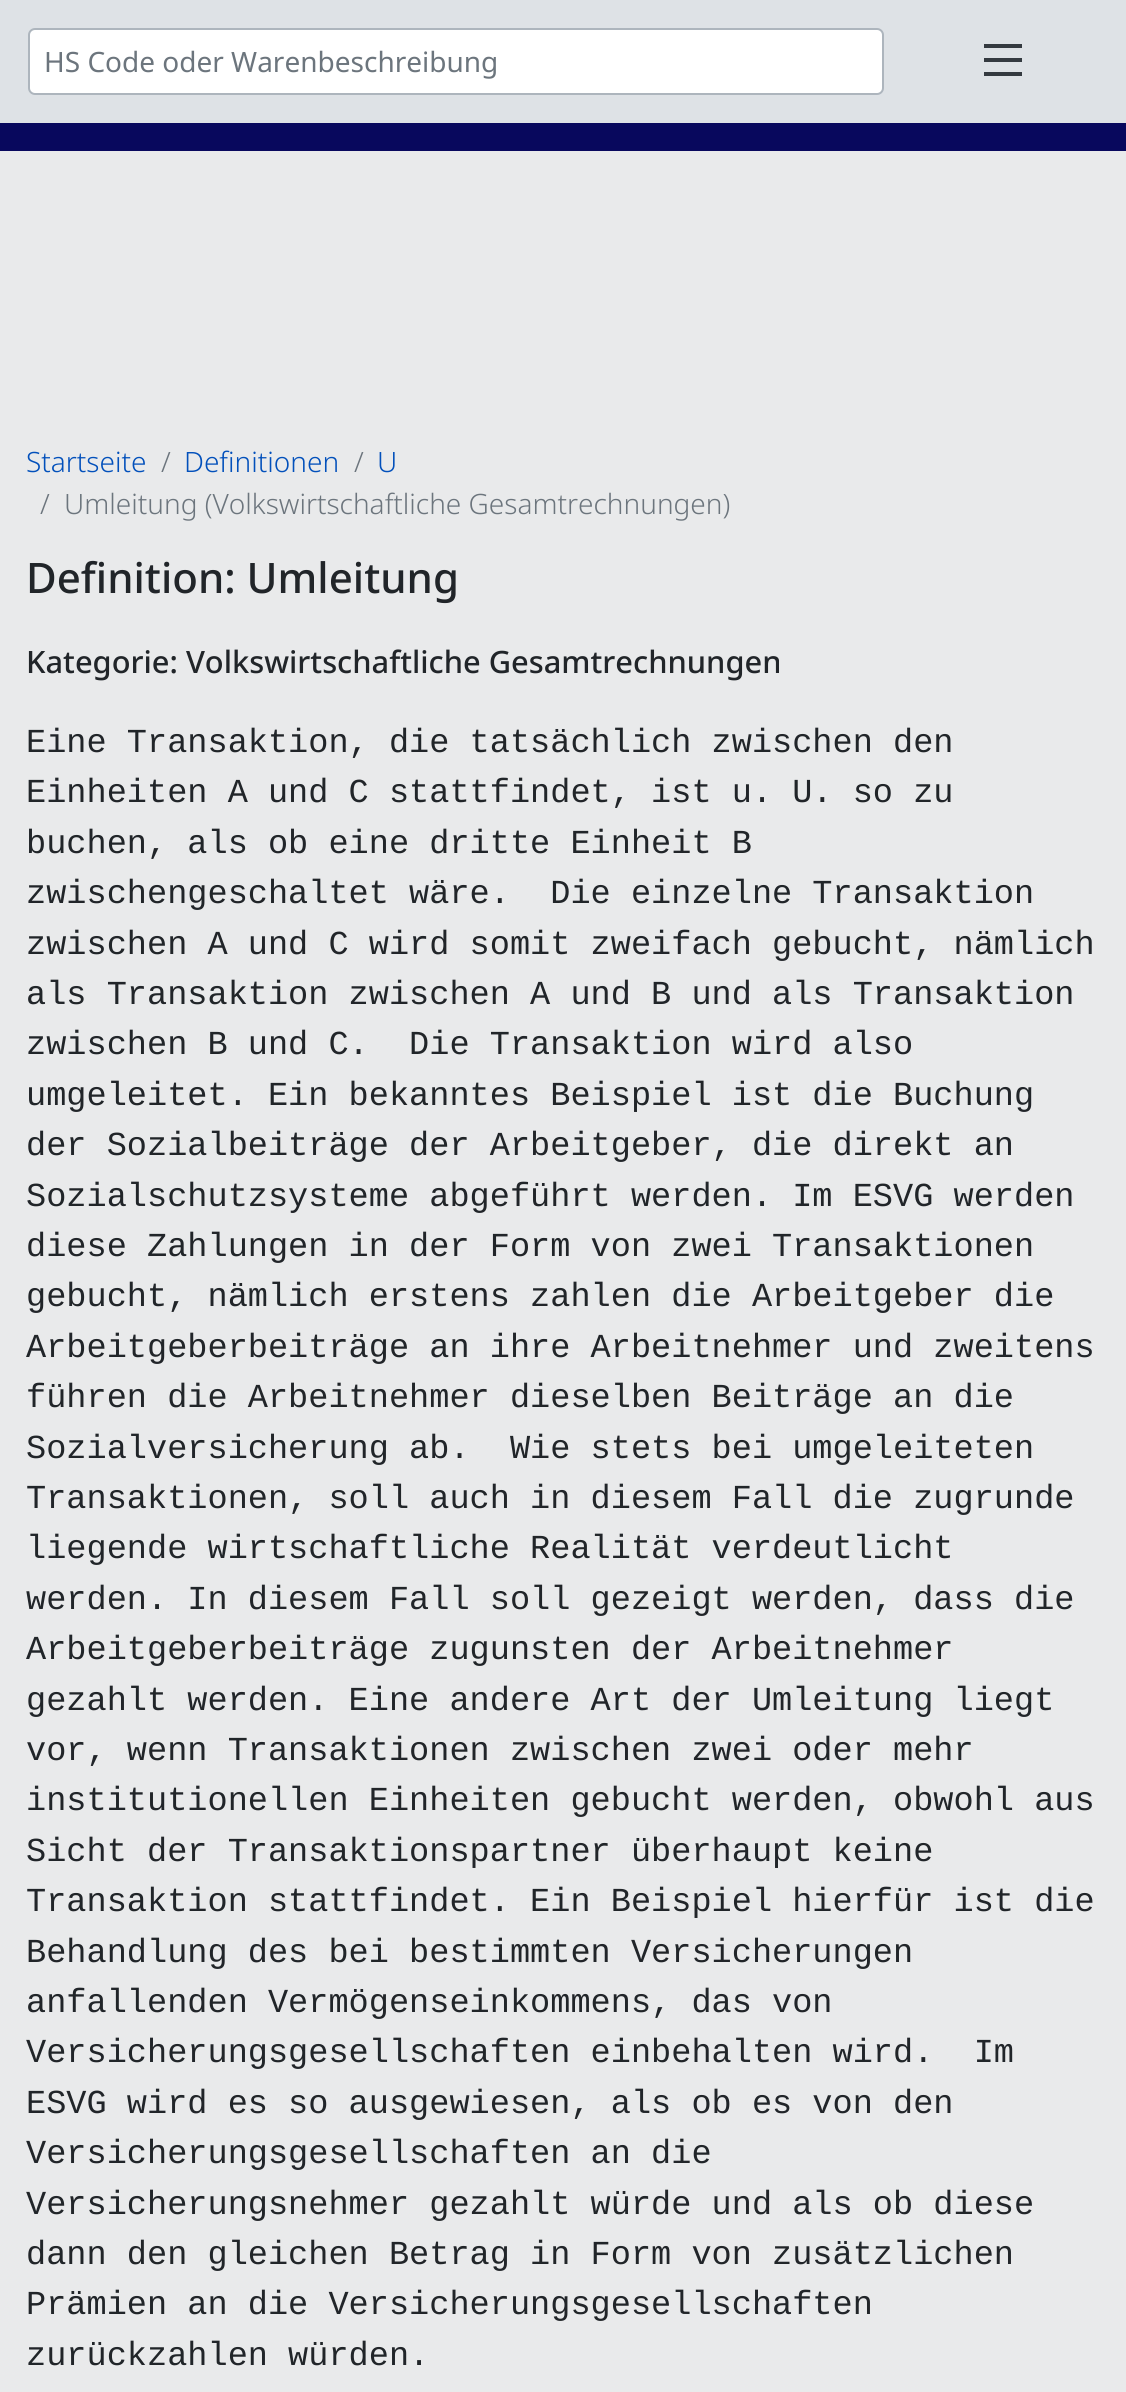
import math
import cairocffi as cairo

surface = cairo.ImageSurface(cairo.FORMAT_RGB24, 1126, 2392)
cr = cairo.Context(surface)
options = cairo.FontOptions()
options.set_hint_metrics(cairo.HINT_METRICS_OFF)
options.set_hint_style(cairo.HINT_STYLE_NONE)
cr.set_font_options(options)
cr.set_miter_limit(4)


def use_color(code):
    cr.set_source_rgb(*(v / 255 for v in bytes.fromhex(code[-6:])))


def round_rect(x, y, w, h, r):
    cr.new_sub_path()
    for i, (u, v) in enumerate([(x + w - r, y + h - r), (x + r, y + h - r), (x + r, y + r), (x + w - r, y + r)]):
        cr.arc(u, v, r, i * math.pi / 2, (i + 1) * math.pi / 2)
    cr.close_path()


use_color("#dee2e6")
cr.paint()
use_color("#ffffff")
round_rect(29, 29, 854, 65, 6)
cr.fill_preserve()
use_color("#adb5bd")
cr.stroke()
cr.select_font_face("Noto Sans")
cr.set_font_size(28)
use_color("#6c757d")
cr.move_to(44, 72)
cr.show_text("HS Code oder Warenbeschreibung")
use_color("#343a40")
cr.rectangle(984, 58, 38, 4)
cr.fill()
cr.rectangle(984, 44, 38, 4)
cr.fill()
cr.rectangle(984, 72, 38, 4)
cr.fill()
use_color("#08085d")
cr.rectangle(0, 123, 1126, 28)
cr.fill()
use_color("#e9eaeb")
cr.rectangle(0, 151, 1126, 2241)
cr.fill()
cr.select_font_face("Noto Sans Light")
use_color("#0250bb")
cr.move_to(26, 472)
cr.show_text("Startseite")
use_color("#6c757d")
cr.move_to(161, 472)
cr.show_text("/")
use_color("#0250bb")
cr.move_to(184, 472)
cr.show_text("Definitionen")
use_color("#6c757d")
cr.move_to(354, 472)
cr.show_text("/")
use_color("#0250bb")
cr.move_to(377, 472)
cr.show_text("U")
use_color("#6c757d")
cr.move_to(40, 514)
cr.show_text("/")
cr.move_to(64, 514)
cr.show_text("Umleitung (Volkswirtschaftliche Gesamtrechnungen)")
cr.select_font_face("Noto Sans Medium")
cr.set_font_size(42)
use_color("#212529")
cr.move_to(26, 593)
cr.show_text("Definition: Umleitung")
cr.set_font_size(30.8)
cr.move_to(26, 673)
cr.show_text("Kategorie: Volkswirtschaftliche Gesamtrechnungen")
cr.select_font_face("Liberation Mono")
cr.set_font_size(33.6)
cr.move_to(26, 752)
cr.show_text("Eine Transaktion, die tatsächlich zwischen den")
cr.move_to(26, 802)
cr.show_text("Einheiten A und C stattfindet, ist u. U. so zu")
cr.move_to(26, 853)
cr.show_text("buchen, als ob eine dritte Einheit B")
cr.move_to(26, 903)
cr.show_text("zwischengeschaltet wäre.  Die einzelne Transaktion")
cr.move_to(26, 954)
cr.show_text("zwischen A und C wird somit zweifach gebucht, nämlich")
cr.move_to(26, 1004)
cr.show_text("als Transaktion zwischen A und B und als Transaktion")
cr.move_to(26, 1054)
cr.show_text("zwischen B und C.  Die Transaktion wird also")
cr.move_to(26, 1105)
cr.show_text("umgeleitet. Ein bekanntes Beispiel ist die Buchung")
cr.move_to(26, 1155)
cr.show_text("der Sozialbeiträge der Arbeitgeber, die direkt an")
cr.move_to(26, 1206)
cr.show_text("Sozialschutzsysteme abgeführt werden. Im ESVG werden")
cr.move_to(26, 1256)
cr.show_text("diese Zahlungen in der Form von zwei Transaktionen")
cr.move_to(26, 1306)
cr.show_text("gebucht, nämlich erstens zahlen die Arbeitgeber die")
cr.move_to(26, 1357)
cr.show_text("Arbeitgeberbeiträge an ihre Arbeitnehmer und zweitens")
cr.move_to(26, 1407)
cr.show_text("führen die Arbeitnehmer dieselben Beiträge an die")
cr.move_to(26, 1458)
cr.show_text("Sozialversicherung ab.  Wie stets bei umgeleiteten")
cr.move_to(26, 1508)
cr.show_text("Transaktionen, soll auch in diesem Fall die zugrunde")
cr.move_to(26, 1558)
cr.show_text("liegende wirtschaftliche Realität verdeutlicht")
cr.move_to(26, 1609)
cr.show_text("werden. In diesem Fall soll gezeigt werden, dass die")
cr.move_to(26, 1659)
cr.show_text("Arbeitgeberbeiträge zugunsten der Arbeitnehmer")
cr.move_to(26, 1710)
cr.show_text("gezahlt werden. Eine andere Art der Umleitung liegt")
cr.move_to(26, 1760)
cr.show_text("vor, wenn Transaktionen zwischen zwei oder mehr")
cr.move_to(26, 1810)
cr.show_text("institutionellen Einheiten gebucht werden, obwohl aus")
cr.move_to(26, 1861)
cr.show_text("Sicht der Transaktionspartner überhaupt keine")
cr.move_to(26, 1911)
cr.show_text("Transaktion stattfindet. Ein Beispiel hierfür ist die")
cr.move_to(26, 1962)
cr.show_text("Behandlung des bei bestimmten Versicherungen")
cr.move_to(26, 2012)
cr.show_text("anfallenden Vermögenseinkommens, das von")
cr.move_to(26, 2062)
cr.show_text("Versicherungsgesellschaften einbehalten wird.  Im")
cr.move_to(26, 2113)
cr.show_text("ESVG wird es so ausgewiesen, als ob es von den")
cr.move_to(26, 2163)
cr.show_text("Versicherungsgesellschaften an die")
cr.move_to(26, 2214)
cr.show_text("Versicherungsnehmer gezahlt würde und als ob diese")
cr.move_to(26, 2264)
cr.show_text("dann den gleichen Betrag in Form von zusätzlichen")
cr.move_to(26, 2314)
cr.show_text("Prämien an die Versicherungsgesellschaften")
cr.move_to(26, 2365)
cr.show_text("zurückzahlen würden.")
surface.write_to_png("result.png")
